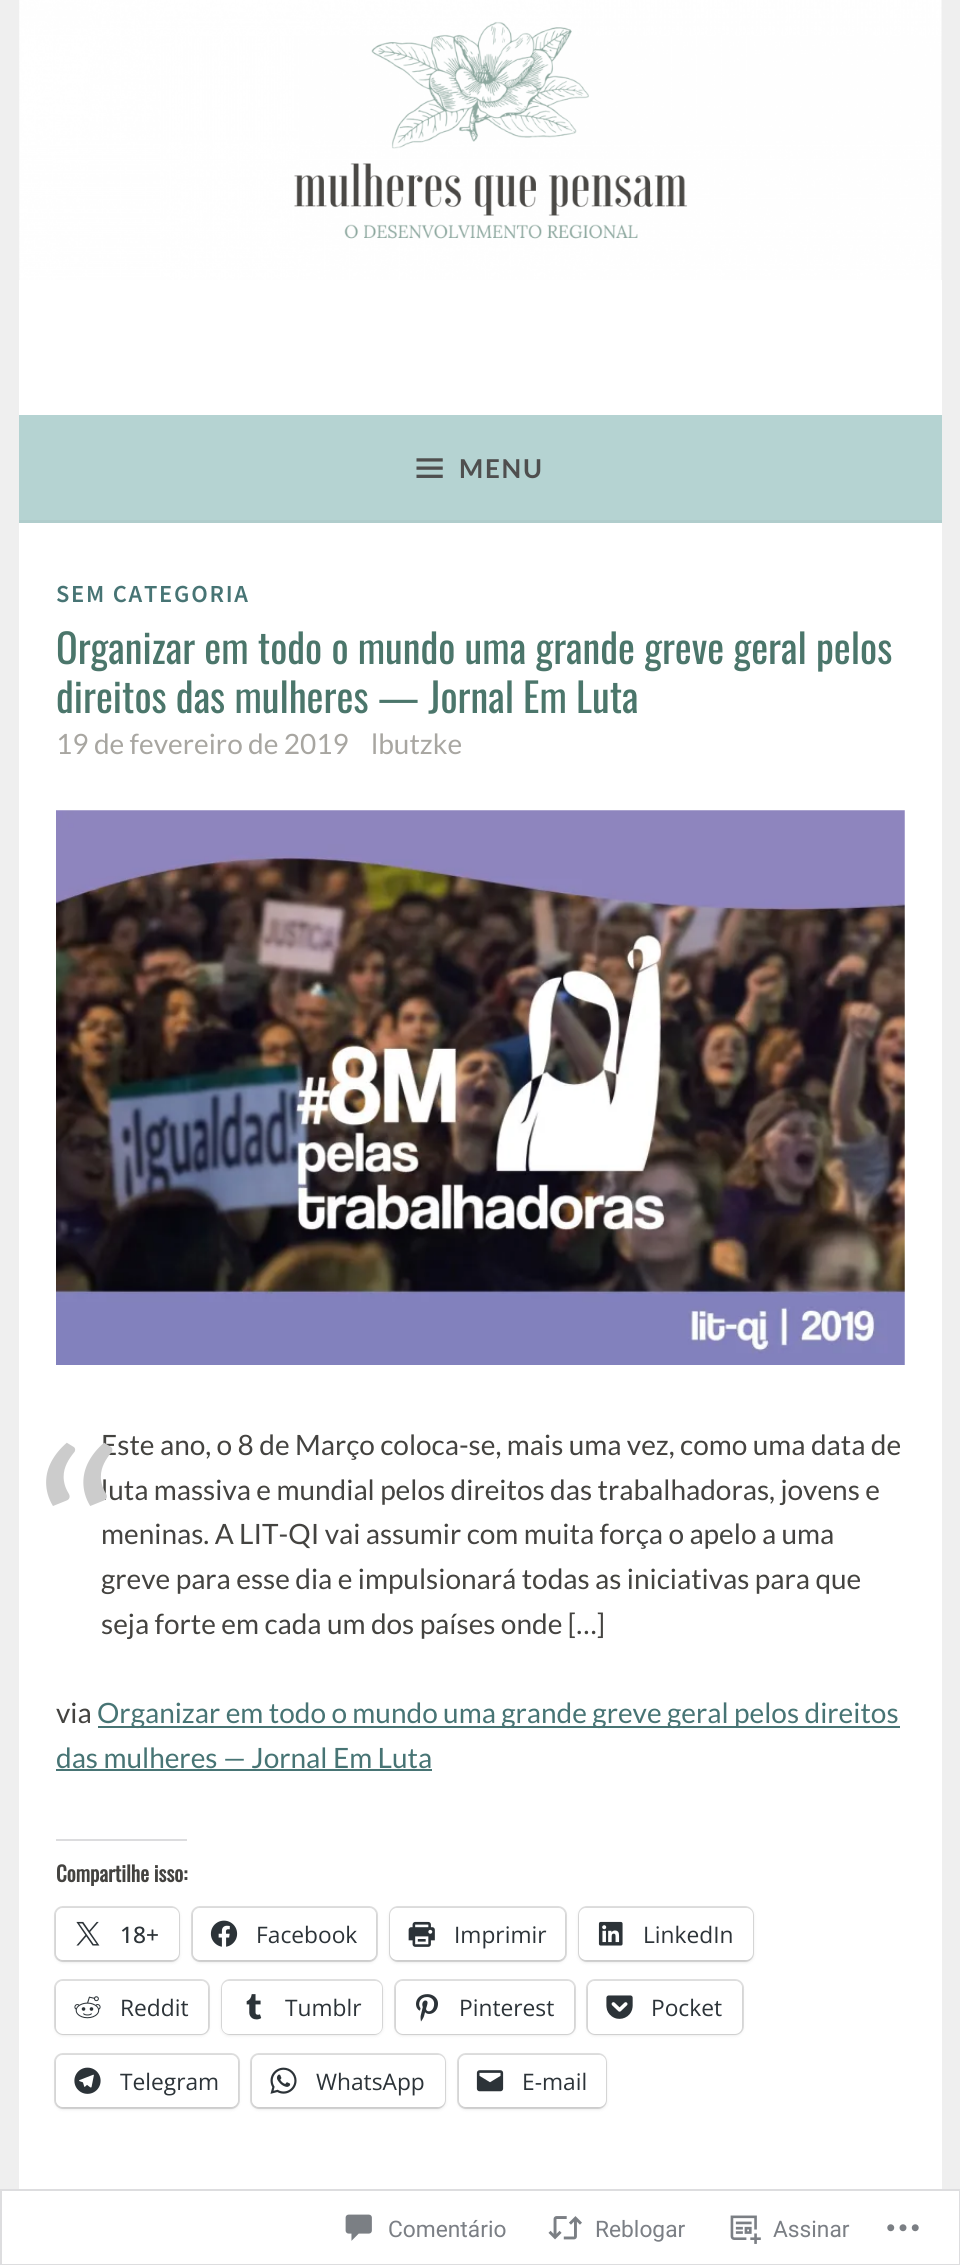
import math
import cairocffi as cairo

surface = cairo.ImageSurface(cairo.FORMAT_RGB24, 960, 2265)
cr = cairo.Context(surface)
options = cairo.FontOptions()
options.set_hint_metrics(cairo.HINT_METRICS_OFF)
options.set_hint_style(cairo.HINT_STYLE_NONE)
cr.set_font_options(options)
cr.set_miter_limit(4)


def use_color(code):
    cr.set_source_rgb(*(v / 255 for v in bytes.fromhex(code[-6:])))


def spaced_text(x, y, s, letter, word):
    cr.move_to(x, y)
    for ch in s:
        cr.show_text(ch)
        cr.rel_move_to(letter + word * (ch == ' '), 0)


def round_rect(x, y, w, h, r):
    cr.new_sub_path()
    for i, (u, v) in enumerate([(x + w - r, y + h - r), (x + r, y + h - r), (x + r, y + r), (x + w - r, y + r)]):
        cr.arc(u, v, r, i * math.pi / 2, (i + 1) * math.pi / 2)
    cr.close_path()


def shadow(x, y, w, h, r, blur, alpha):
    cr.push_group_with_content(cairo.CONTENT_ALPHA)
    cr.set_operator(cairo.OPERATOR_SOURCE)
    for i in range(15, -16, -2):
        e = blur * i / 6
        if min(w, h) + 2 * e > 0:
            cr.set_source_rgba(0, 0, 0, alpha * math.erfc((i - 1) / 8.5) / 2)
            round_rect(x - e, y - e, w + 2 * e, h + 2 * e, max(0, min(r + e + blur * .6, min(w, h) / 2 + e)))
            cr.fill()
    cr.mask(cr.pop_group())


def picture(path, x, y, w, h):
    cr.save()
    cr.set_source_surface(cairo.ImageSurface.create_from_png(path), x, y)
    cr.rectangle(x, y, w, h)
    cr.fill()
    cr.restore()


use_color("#efefef")
cr.paint()
picture("img1.png", 19, 0, 923, 280)
use_color("#ffffff")
cr.rectangle(19, 280, 923, 135)
cr.fill()
use_color("#b5d3d2")
cr.rectangle(19, 415, 923, 105)
cr.fill()
use_color("#b0cdcc")
cr.rectangle(19, 520, 923, 3)
cr.fill()
picture("img2.png", 416, 458, 27, 20)
cr.select_font_face("Lato", cairo.FONT_SLANT_NORMAL, cairo.FONT_WEIGHT_BOLD)
cr.set_font_size(26)
use_color("#4f4f4f")
spaced_text(459, 478, "MENU", 1.75, 0)
use_color("#ffffff")
cr.rectangle(19, 523, 923, 1666)
cr.fill()
cr.select_font_face("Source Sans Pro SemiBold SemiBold")
cr.set_font_size(24.5)
use_color("#477474")
spaced_text(56, 602, "SEM CATEGORIA", 1.75, 0)
cr.select_font_face("Oswald")
cr.set_font_size(40.25)
use_color("#4b766b")
cr.move_to(56, 664)
cr.show_text("Organizar em todo o mundo uma grande greve geral pelos")
cr.move_to(56, 713)
cr.show_text("direitos das mulheres — Jornal Em Luta")
cr.select_font_face("Lato")
cr.set_font_size(28)
use_color("#a8a6a1")
cr.move_to(56, 754)
cr.show_text("19 de fevereiro de 2019")
cr.move_to(371, 754)
cr.show_text("lbutzke")
picture("img3.png", 56, 810, 849, 555)
use_color("#444340")
cr.move_to(101, 1455)
cr.show_text("Este ano, o 8 de Março coloca-se, mais uma vez, como uma data de")
cr.move_to(101, 1500)
cr.show_text("luta massiva e mundial pelos direitos das trabalhadoras, jovens e")
cr.set_font_size(245)
use_color("#cccccc")
cr.move_to(39, 1630)
cr.show_text("“")
cr.set_font_size(28)
use_color("#444340")
cr.move_to(101, 1544)
cr.show_text("meninas. A LIT-QI vai assumir com muita força o apelo a uma")
cr.move_to(101, 1589)
cr.show_text("greve para esse dia e impulsionará todas as iniciativas para que")
cr.move_to(101, 1634)
cr.show_text("seja forte em cada um dos países onde […]")
cr.move_to(56, 1723)
cr.show_text("via")
use_color("#477474")
cr.rectangle(98, 1726, 802, 2)
cr.fill()
cr.move_to(97, 1723)
cr.show_text("Organizar em todo o mundo uma grande greve geral pelos direitos")
cr.move_to(56, 1768)
cr.show_text("das mulheres — Jornal Em Luta")
cr.rectangle(56, 1769, 376, 2)
cr.fill()
use_color("#dcdcde")
cr.rectangle(56, 1839, 131, 2)
cr.fill()
cr.select_font_face("Oswald", cairo.FONT_SLANT_NORMAL, cairo.FONT_WEIGHT_BOLD)
cr.set_font_size(21)
use_color("#444340")
cr.move_to(56, 1882)
cr.show_text("Compartilhe isso:")
round_rect(55, 1907, 124, 54, 8)
use_color("#e0e0e0")
cr.stroke()
use_color("#000000")
shadow(56, 1909, 123, 53, 7, 2, 0.12)
use_color("#ffffff")
round_rect(56, 1908, 123, 52, 7)
cr.fill()
picture("img4.png", 76, 1921, 24, 25)
cr.select_font_face("Open Sans Medium")
cr.set_font_size(22.75)
use_color("#2c3338")
cr.move_to(120, 1943)
cr.show_text("18+")
round_rect(192, 1907, 185, 54, 8)
use_color("#e0e0e0")
cr.stroke()
use_color("#000000")
shadow(193, 1909, 183, 53, 7, 2, 0.12)
use_color("#ffffff")
round_rect(193, 1908, 183, 52, 7)
cr.fill()
picture("img5.png", 210, 1920, 28, 27)
cr.select_font_face("Open Sans")
use_color("#2c3338")
cr.move_to(256, 1943)
cr.show_text("Facebook")
round_rect(390, 1907, 176, 54, 8)
use_color("#e0e0e0")
cr.stroke()
use_color("#000000")
shadow(390, 1909, 175, 53, 7, 2, 0.12)
use_color("#ffffff")
round_rect(390, 1908, 175, 52, 7)
cr.fill()
picture("img6.png", 408, 1921, 27, 26)
use_color("#2c3338")
cr.move_to(454, 1943)
cr.show_text("Imprimir")
round_rect(579, 1907, 174, 54, 8)
use_color("#e0e0e0")
cr.stroke()
use_color("#000000")
shadow(579, 1909, 174, 53, 7, 2, 0.12)
use_color("#ffffff")
round_rect(579, 1908, 174, 52, 7)
cr.fill()
picture("img7.png", 598, 1921, 25, 25)
use_color("#2c3338")
cr.move_to(643, 1943)
cr.show_text("LinkedIn")
round_rect(55, 1980, 154, 54, 8)
use_color("#e0e0e0")
cr.stroke()
use_color("#000000")
shadow(56, 1983, 152, 52, 7, 2, 0.12)
use_color("#ffffff")
round_rect(56, 1981, 152, 53, 7)
cr.fill()
picture("img8.png", 74, 1996, 27, 23)
use_color("#2c3338")
cr.move_to(120, 2016)
cr.show_text("Reddit")
round_rect(222, 1980, 160, 54, 8)
use_color("#e0e0e0")
cr.stroke()
use_color("#000000")
shadow(222, 1983, 160, 52, 7, 2, 0.12)
use_color("#ffffff")
round_rect(222, 1981, 160, 53, 7)
cr.fill()
picture("img9.png", 246, 1994, 16, 26)
use_color("#2c3338")
cr.move_to(285, 2016)
cr.show_text("Tumblr")
round_rect(395, 1980, 180, 54, 8)
use_color("#e0e0e0")
cr.stroke()
use_color("#000000")
shadow(396, 1983, 178, 52, 7, 2, 0.12)
use_color("#ffffff")
round_rect(396, 1981, 178, 53, 7)
cr.fill()
picture("img10.png", 416, 1994, 22, 28)
use_color("#2c3338")
cr.move_to(459, 2016)
cr.show_text("Pinterest")
round_rect(587, 1980, 156, 54, 8)
use_color("#e0e0e0")
cr.stroke()
use_color("#000000")
shadow(588, 1983, 154, 52, 7, 2, 0.12)
use_color("#ffffff")
round_rect(588, 1981, 154, 53, 7)
cr.fill()
picture("img11.png", 606, 1995, 27, 24)
use_color("#2c3338")
cr.move_to(651, 2016)
cr.show_text("Pocket")
round_rect(55, 2054, 184, 54, 8)
use_color("#e0e0e0")
cr.stroke()
use_color("#000000")
shadow(56, 2056, 182, 53, 7, 2, 0.12)
use_color("#ffffff")
round_rect(56, 2055, 182, 52, 7)
cr.fill()
picture("img12.png", 74, 2067, 27, 27)
use_color("#2c3338")
cr.move_to(120, 2090)
cr.show_text("Telegram")
round_rect(251, 2054, 194, 54, 8)
use_color("#e0e0e0")
cr.stroke()
use_color("#000000")
shadow(252, 2056, 193, 53, 7, 2, 0.12)
use_color("#ffffff")
round_rect(252, 2055, 193, 52, 7)
cr.fill()
picture("img13.png", 270, 2067, 27, 27)
use_color("#2c3338")
cr.move_to(316, 2090)
cr.show_text("WhatsApp")
round_rect(458, 2054, 148, 54, 8)
use_color("#e0e0e0")
cr.stroke()
use_color("#000000")
shadow(459, 2056, 147, 53, 7, 2, 0.12)
use_color("#ffffff")
round_rect(459, 2055, 147, 52, 7)
cr.fill()
picture("img14.png", 476, 2070, 28, 22)
use_color("#2c3338")
cr.move_to(522, 2090)
cr.show_text("E-mail")
use_color("#ffffff")
cr.rectangle(1, 2190, 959, 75)
cr.fill_preserve()
use_color("#dddddf")
cr.stroke()
picture("img15.png", 345, 2214, 27, 27)
cr.select_font_face("Roboto")
use_color("#7b7f85")
cr.move_to(388, 2237)
cr.show_text("Comentário")
picture("img16.png", 548, 2216, 34, 24)
cr.move_to(595, 2237)
cr.show_text("Reblogar")
picture("img17.png", 730, 2215, 31, 29)
cr.move_to(773, 2237)
cr.show_text("Assinar")
picture("img18.png", 887, 2224, 32, 8)
surface.write_to_png("result.png")
